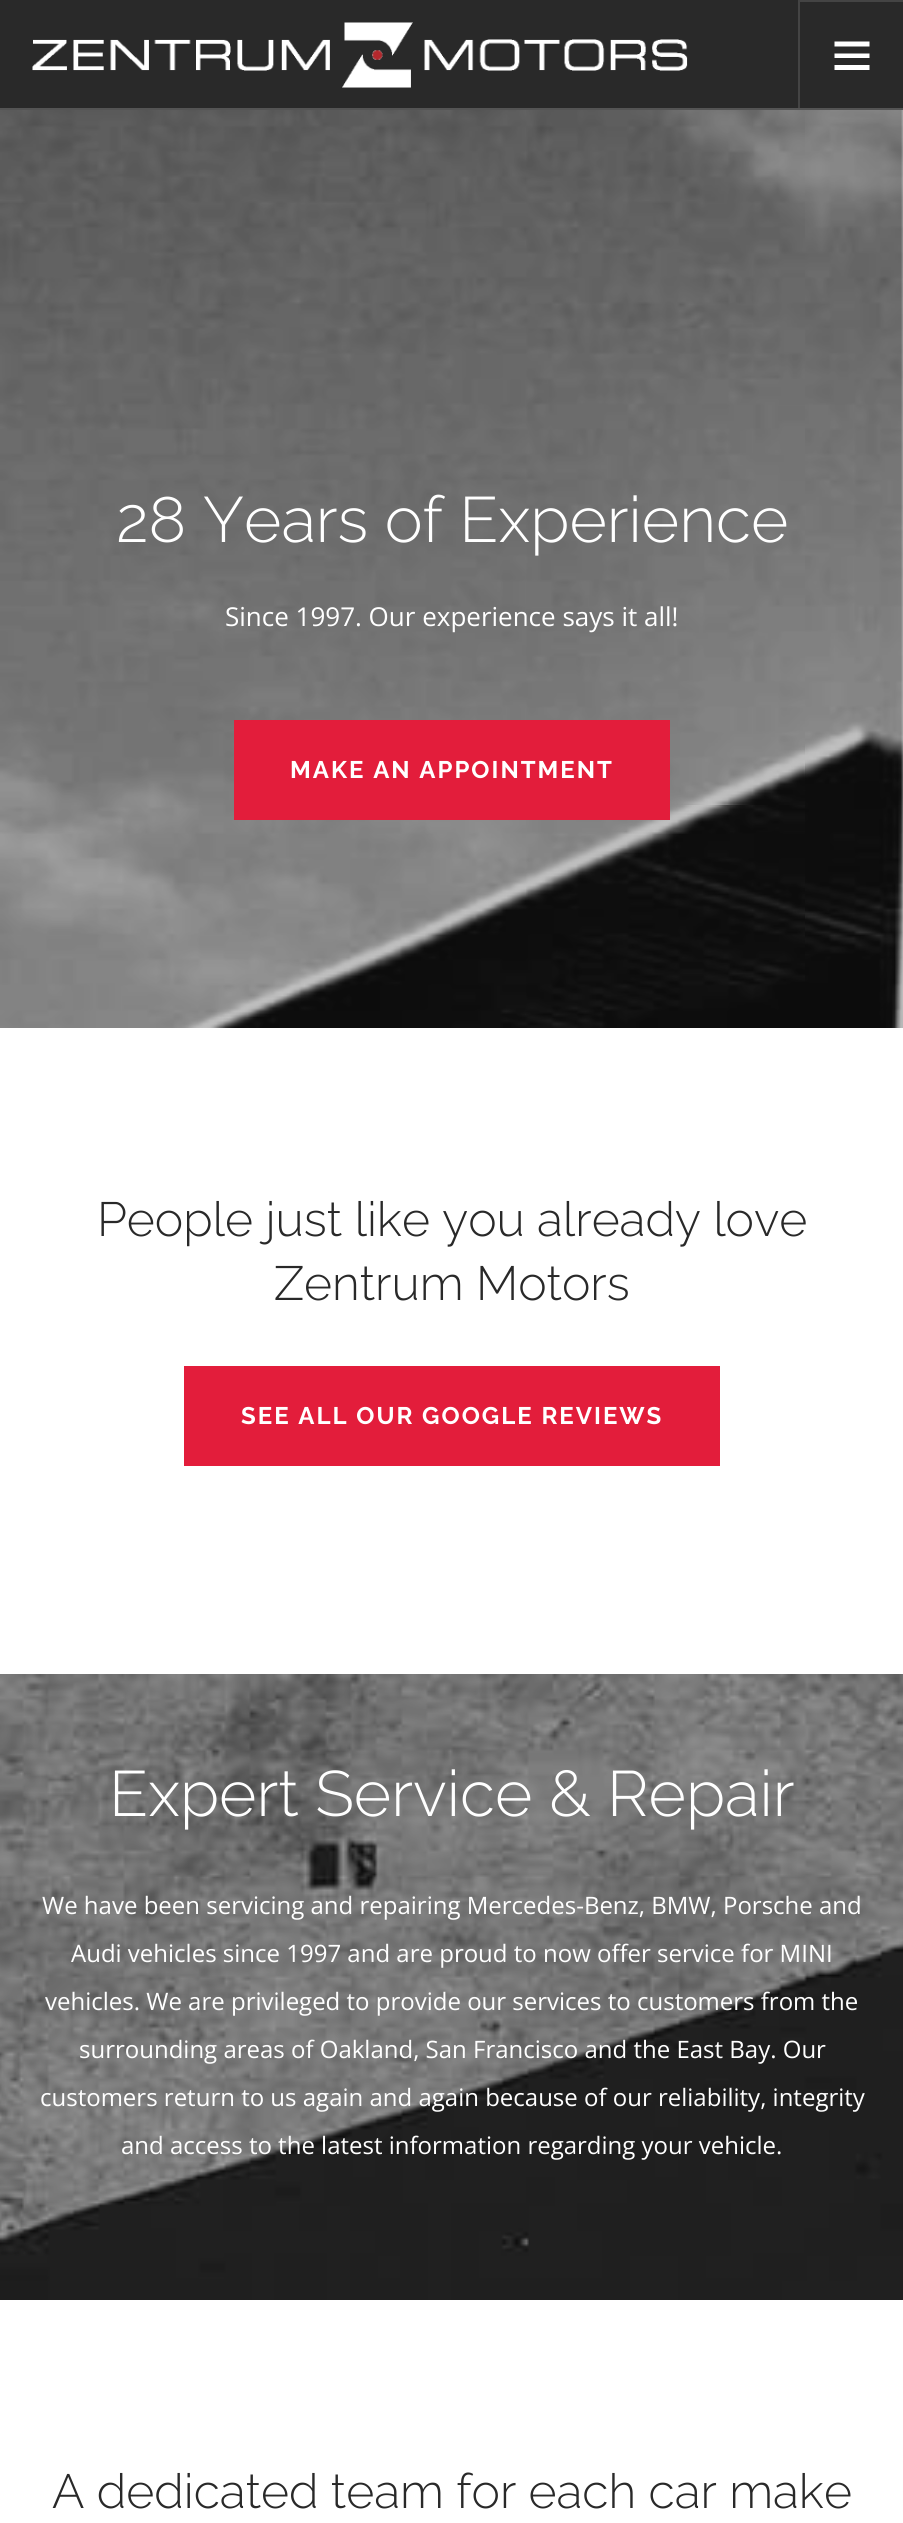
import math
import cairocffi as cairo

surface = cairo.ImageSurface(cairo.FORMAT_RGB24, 903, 2523)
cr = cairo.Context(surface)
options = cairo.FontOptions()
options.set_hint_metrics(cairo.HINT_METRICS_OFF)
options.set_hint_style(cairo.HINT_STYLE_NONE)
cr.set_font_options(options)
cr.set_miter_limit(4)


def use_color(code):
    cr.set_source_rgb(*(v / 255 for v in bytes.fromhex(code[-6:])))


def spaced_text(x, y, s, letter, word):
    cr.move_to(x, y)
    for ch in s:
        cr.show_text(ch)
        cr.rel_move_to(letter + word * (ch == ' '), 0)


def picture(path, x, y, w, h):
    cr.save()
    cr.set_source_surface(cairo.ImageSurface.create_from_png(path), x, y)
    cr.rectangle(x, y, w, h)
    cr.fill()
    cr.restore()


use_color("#ffffff")
cr.paint()
use_color("#292929")
cr.rectangle(0, 0, 903, 108)
cr.fill()
use_color("#545454")
cr.rectangle(0, 108, 903, 2)
cr.fill()
picture("img1.png", 32, 22, 656, 66)
use_color("#444444")
cr.rectangle(798, 0, 105, 2)
cr.fill()
cr.rectangle(798, 0, 2, 108)
cr.fill()
use_color("#ffffff")
cr.new_path()
cr.move_to(869.5, 41.5)
cr.line_to(869.5, 46.5)
cr.line_to(834.5, 46.5)
cr.line_to(834.5, 41.5)
cr.close_path()
cr.move_to(834.5, 58)
cr.line_to(869.5, 58)
cr.line_to(869.5, 53.5)
cr.line_to(834.5, 53.5)
cr.close_path()
cr.move_to(834.5, 70)
cr.line_to(869.5, 70)
cr.line_to(869.5, 65)
cr.line_to(834.5, 65)
cr.close_path()
cr.fill()
picture("img2.png", 0, 110, 903, 918)
cr.select_font_face("Raleway Light")
cr.set_font_size(64)
cr.move_to(116, 542)
cr.show_text("28 Years of Experience")
cr.select_font_face("Open Sans")
cr.set_font_size(26)
cr.move_to(225, 626)
cr.show_text("Since 1997. Our experience says it all!")
use_color("#e31d3b")
cr.rectangle(234, 720, 436, 100)
cr.fill()
cr.select_font_face("Raleway", cairo.FONT_SLANT_NORMAL, cairo.FONT_WEIGHT_BOLD)
cr.set_font_size(24)
use_color("#ffffff")
spaced_text(290, 778, "MAKE AN APPOINTMENT", 2, 0)
cr.select_font_face("Raleway Light")
cr.set_font_size(48)
use_color("#292929")
cr.move_to(97, 1236)
cr.show_text("People just like you already love")
cr.move_to(274, 1300)
cr.show_text("Zentrum Motors")
use_color("#e31d3b")
cr.rectangle(184, 1366, 536, 100)
cr.fill()
cr.select_font_face("Raleway", cairo.FONT_SLANT_NORMAL, cairo.FONT_WEIGHT_BOLD)
cr.set_font_size(24)
use_color("#ffffff")
spaced_text(241, 1424, "SEE ALL OUR GOOGLE REVIEWS", 2, 0)
picture("img3.png", 0, 1674, 903, 626)
cr.select_font_face("Raleway Light")
cr.set_font_size(64)
cr.move_to(109, 1816)
cr.show_text("Expert Service & Repair")
cr.select_font_face("Open Sans")
cr.set_font_size(24)
cr.move_to(42, 1914)
cr.show_text("We have been servicing and repairing Mercedes-Benz, BMW, Porsche and")
cr.move_to(71, 1962)
cr.show_text("Audi vehicles since 1997 and are proud to now offer service for MINI")
cr.move_to(45, 2010)
cr.show_text("vehicles. We are privileged to provide our services to customers from the")
cr.move_to(79, 2058)
cr.show_text("surrounding areas of Oakland, San Francisco and the East Bay. Our")
cr.move_to(40, 2106)
cr.show_text("customers return to us again and again because of our reliability, integrity")
cr.move_to(121, 2154)
cr.show_text("and access to the latest information regarding your vehicle.")
cr.select_font_face("Raleway Light")
cr.set_font_size(48)
use_color("#292929")
cr.move_to(52, 2508)
cr.show_text("A dedicated team for each car make")
surface.write_to_png("result.png")
